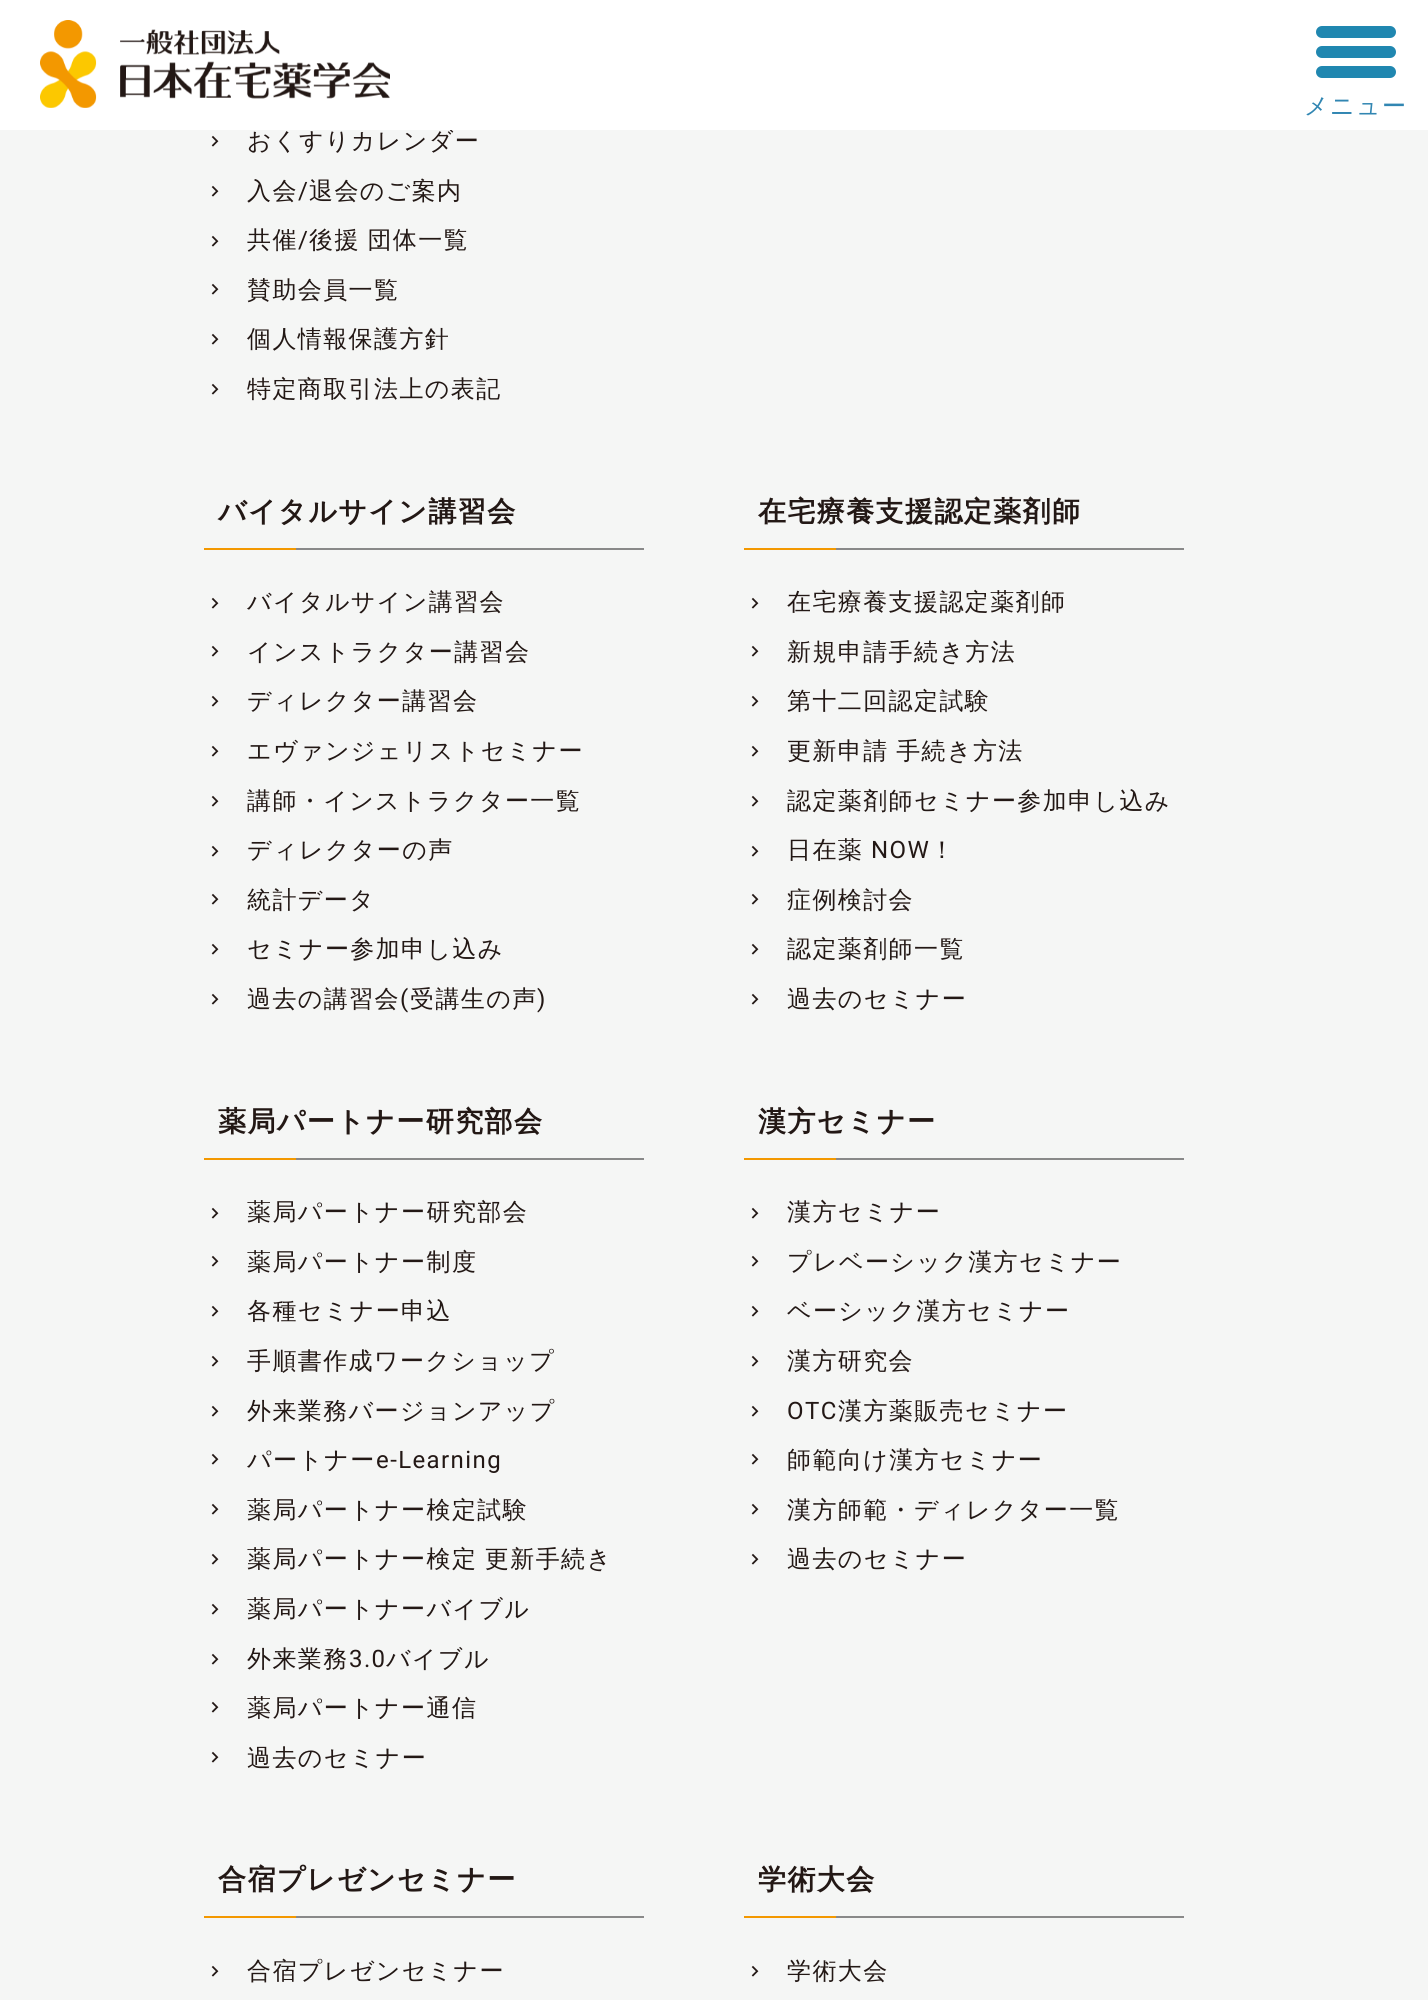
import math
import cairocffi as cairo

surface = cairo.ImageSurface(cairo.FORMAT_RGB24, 1428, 2000)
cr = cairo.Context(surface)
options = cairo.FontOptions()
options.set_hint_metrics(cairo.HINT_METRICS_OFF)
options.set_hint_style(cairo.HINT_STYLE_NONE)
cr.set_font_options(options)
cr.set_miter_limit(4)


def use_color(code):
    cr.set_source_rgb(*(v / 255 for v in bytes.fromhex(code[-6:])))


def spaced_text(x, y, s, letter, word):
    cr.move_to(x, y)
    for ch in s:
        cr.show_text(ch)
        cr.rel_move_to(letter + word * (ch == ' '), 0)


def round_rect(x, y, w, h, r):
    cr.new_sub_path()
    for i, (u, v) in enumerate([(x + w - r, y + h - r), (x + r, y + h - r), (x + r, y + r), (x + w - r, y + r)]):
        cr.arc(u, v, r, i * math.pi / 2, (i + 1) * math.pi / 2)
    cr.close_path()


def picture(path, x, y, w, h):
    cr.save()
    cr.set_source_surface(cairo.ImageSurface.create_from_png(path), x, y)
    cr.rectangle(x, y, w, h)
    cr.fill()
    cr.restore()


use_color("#f5f6f5")
cr.paint()
cr.select_font_face("WenQuanYi Zen Hei Medium")
cr.set_font_size(24)
use_color("#231815")
spaced_text(247, 149, "おくすりカレンダー", 1.4, 0)
use_color("#ffffff")
cr.rectangle(0, 0, 1428, 130)
cr.fill()
picture("img1.png", 40, 20, 350, 88)
use_color("#2087b0")
round_rect(1316, 46, 80, 12, 6)
cr.fill()
round_rect(1316, 26, 80, 12, 6)
cr.fill()
round_rect(1316, 66, 80, 12, 6)
cr.fill()
use_color("#3186b2")
spaced_text(1304, 114, "メニュー", 1.4, 0)
picture("img2.png", 211, 135, 8, 12)
picture("img2.png", 211, 185, 8, 12)
use_color("#231815")
spaced_text(247, 199, "入会", 1.4, 0)
cr.select_font_face("Roboto")
spaced_text(298, 199, "/", 1.4, 0)
cr.select_font_face("WenQuanYi Zen Hei Medium")
spaced_text(309, 199, "退会のご案内", 1.4, 0)
picture("img2.png", 211, 235, 8, 12)
spaced_text(247, 248, "共催", 1.4, 0)
cr.select_font_face("Roboto")
spaced_text(298, 248, "/", 1.4, 0)
cr.select_font_face("WenQuanYi Zen Hei Medium")
spaced_text(309, 248, "後援 団体一覧", 1.4, -1)
picture("img2.png", 211, 283, 8, 12)
spaced_text(247, 298, "賛助会員一覧", 1.4, 0)
picture("img2.png", 211, 333, 8, 12)
spaced_text(247, 347, "個人情報保護方針", 1.4, 0)
picture("img2.png", 211, 383, 8, 12)
spaced_text(247, 397, "特定商取引法上の表記", 1.4, 0)
picture("img3.png", 204, 548, 440, 2)
cr.select_font_face("WenQuanYi Zen Hei", cairo.FONT_SLANT_NORMAL, cairo.FONT_WEIGHT_BOLD)
cr.set_font_size(28)
spaced_text(218, 521, "バイタルサイン講習会", 1.4, 0)
picture("img2.png", 211, 597, 8, 12)
cr.select_font_face("WenQuanYi Zen Hei Medium")
cr.set_font_size(24)
spaced_text(247, 610, "バイタルサイン講習会", 1.4, 0)
picture("img2.png", 211, 645, 8, 12)
spaced_text(247, 660, "インストラクター講習会", 1.4, 0)
picture("img2.png", 211, 695, 8, 12)
spaced_text(247, 709, "ディレクター講習会", 1.4, 0)
picture("img2.png", 211, 745, 8, 12)
spaced_text(247, 759, "エヴァンジェリストセミナー", 1.4, 0)
picture("img2.png", 211, 795, 8, 12)
spaced_text(247, 809, "講師・インストラクター一覧", 1.4, 0)
picture("img2.png", 211, 845, 8, 12)
spaced_text(247, 858, "ディレクターの声", 1.4, 0)
picture("img2.png", 211, 893, 8, 12)
spaced_text(247, 908, "統計データ", 1.4, 0)
picture("img2.png", 211, 943, 8, 12)
spaced_text(247, 957, "セミナー参加申し込み", 1.4, 0)
picture("img2.png", 211, 993, 8, 12)
spaced_text(247, 1007, "過去の講習会", 1.4, 0)
cr.select_font_face("Roboto")
spaced_text(400, 1007, "(", 1.4, 0)
cr.select_font_face("WenQuanYi Zen Hei Medium")
spaced_text(410, 1007, "受講生の声", 1.4, 0)
cr.select_font_face("Roboto")
spaced_text(537, 1007, ")", 1.4, 0)
picture("img3.png", 744, 548, 440, 2)
cr.select_font_face("WenQuanYi Zen Hei", cairo.FONT_SLANT_NORMAL, cairo.FONT_WEIGHT_BOLD)
cr.set_font_size(28)
spaced_text(758, 521, "在宅療養支援認定薬剤師", 1.4, 0)
picture("img2.png", 751, 597, 8, 12)
cr.select_font_face("WenQuanYi Zen Hei Medium")
cr.set_font_size(24)
spaced_text(787, 610, "在宅療養支援認定薬剤師", 1.4, 0)
picture("img2.png", 751, 645, 8, 12)
spaced_text(787, 660, "新規申請手続き方法", 1.4, 0)
picture("img2.png", 751, 695, 8, 12)
spaced_text(787, 709, "第十二回認定試験", 1.4, 0)
picture("img2.png", 751, 745, 8, 12)
spaced_text(787, 759, "更新申請 手続き方法", 1.4, -1)
picture("img2.png", 751, 795, 8, 12)
spaced_text(787, 809, "認定薬剤師セミナー参加申し込み", 1.4, 0)
picture("img2.png", 751, 845, 8, 12)
spaced_text(787, 858, "日在薬", 1.4, 0)
cr.select_font_face("Roboto")
spaced_text(871, 858, "NOW", 1.4, 0)
cr.select_font_face("WenQuanYi Zen Hei Medium")
spaced_text(930, 858, "！", 1.4, 0)
picture("img2.png", 751, 893, 8, 12)
spaced_text(787, 908, "症例検討会", 1.4, 0)
picture("img2.png", 751, 943, 8, 12)
spaced_text(787, 957, "認定薬剤師一覧", 1.4, 0)
picture("img2.png", 751, 993, 8, 12)
spaced_text(787, 1007, "過去のセミナー", 1.4, 0)
picture("img3.png", 204, 1158, 440, 2)
cr.select_font_face("WenQuanYi Zen Hei", cairo.FONT_SLANT_NORMAL, cairo.FONT_WEIGHT_BOLD)
cr.set_font_size(28)
spaced_text(218, 1131, "薬局パートナー研究部会", 1.4, 0)
picture("img2.png", 211, 1207, 8, 12)
cr.select_font_face("WenQuanYi Zen Hei Medium")
cr.set_font_size(24)
spaced_text(247, 1220, "薬局パートナー研究部会", 1.4, 0)
picture("img2.png", 211, 1255, 8, 12)
spaced_text(247, 1270, "薬局パートナー制度", 1.4, 0)
picture("img2.png", 211, 1305, 8, 12)
spaced_text(247, 1319, "各種セミナー申込", 1.4, 0)
picture("img2.png", 211, 1355, 8, 12)
spaced_text(247, 1369, "手順書作成ワークショップ", 1.4, 0)
picture("img2.png", 211, 1405, 8, 12)
spaced_text(247, 1419, "外来業務バージョンアップ", 1.4, 0)
picture("img2.png", 211, 1453, 8, 12)
spaced_text(247, 1468, "パートナー", 1.4, 0)
cr.select_font_face("Roboto")
spaced_text(376, 1468, "e-Learning", 1.4, 0)
picture("img2.png", 211, 1503, 8, 12)
cr.select_font_face("WenQuanYi Zen Hei Medium")
spaced_text(247, 1518, "薬局パートナー検定試験", 1.4, 0)
picture("img2.png", 211, 1553, 8, 12)
spaced_text(247, 1567, "薬局パートナー検定 更新手続き", 1.4, -1)
picture("img2.png", 211, 1603, 8, 12)
spaced_text(247, 1617, "薬局パートナーバイブル", 1.4, 0)
picture("img2.png", 211, 1653, 8, 12)
spaced_text(247, 1667, "外来業務", 1.4, 0)
cr.select_font_face("Roboto")
spaced_text(349, 1667, "3.0", 1.4, 0)
cr.select_font_face("WenQuanYi Zen Hei Medium")
spaced_text(386, 1667, "バイブル", 1.4, 0)
picture("img2.png", 211, 1701, 8, 12)
spaced_text(247, 1716, "薬局パートナー通信", 1.4, 0)
picture("img2.png", 211, 1751, 8, 12)
spaced_text(247, 1766, "過去のセミナー", 1.4, 0)
picture("img3.png", 744, 1158, 440, 2)
cr.select_font_face("WenQuanYi Zen Hei", cairo.FONT_SLANT_NORMAL, cairo.FONT_WEIGHT_BOLD)
cr.set_font_size(28)
spaced_text(758, 1131, "漢方セミナー", 1.4, 0)
picture("img2.png", 751, 1207, 8, 12)
cr.select_font_face("WenQuanYi Zen Hei Medium")
cr.set_font_size(24)
spaced_text(787, 1220, "漢方セミナー", 1.4, 0)
picture("img2.png", 751, 1255, 8, 12)
spaced_text(787, 1270, "プレベーシック漢方セミナー", 1.4, 0)
picture("img2.png", 751, 1305, 8, 12)
spaced_text(787, 1319, "ベーシック漢方セミナー", 1.4, 0)
picture("img2.png", 751, 1355, 8, 12)
spaced_text(787, 1369, "漢方研究会", 1.4, 0)
picture("img2.png", 751, 1405, 8, 12)
cr.select_font_face("Roboto")
spaced_text(787, 1419, "OTC", 1.4, 0)
cr.select_font_face("WenQuanYi Zen Hei Medium")
spaced_text(838, 1419, "漢方薬販売セミナー", 1.4, 0)
picture("img2.png", 751, 1453, 8, 12)
spaced_text(787, 1468, "師範向け漢方セミナー", 1.4, 0)
picture("img2.png", 751, 1503, 8, 12)
spaced_text(787, 1518, "漢方師範・ディレクター一覧", 1.4, 0)
picture("img2.png", 751, 1553, 8, 12)
spaced_text(787, 1567, "過去のセミナー", 1.4, 0)
picture("img3.png", 204, 1916, 440, 2)
cr.select_font_face("WenQuanYi Zen Hei", cairo.FONT_SLANT_NORMAL, cairo.FONT_WEIGHT_BOLD)
cr.set_font_size(28)
spaced_text(218, 1889, "合宿プレゼンセミナー", 1.4, 0)
picture("img2.png", 211, 1965, 8, 12)
cr.select_font_face("WenQuanYi Zen Hei Medium")
cr.set_font_size(24)
spaced_text(247, 1979, "合宿プレゼンセミナー", 1.4, 0)
picture("img3.png", 744, 1916, 440, 2)
cr.select_font_face("WenQuanYi Zen Hei", cairo.FONT_SLANT_NORMAL, cairo.FONT_WEIGHT_BOLD)
cr.set_font_size(28)
spaced_text(758, 1889, "学術大会", 1.4, 0)
picture("img2.png", 751, 1965, 8, 12)
cr.select_font_face("WenQuanYi Zen Hei Medium")
cr.set_font_size(24)
spaced_text(787, 1979, "学術大会", 1.4, 0)
surface.write_to_png("result.png")
